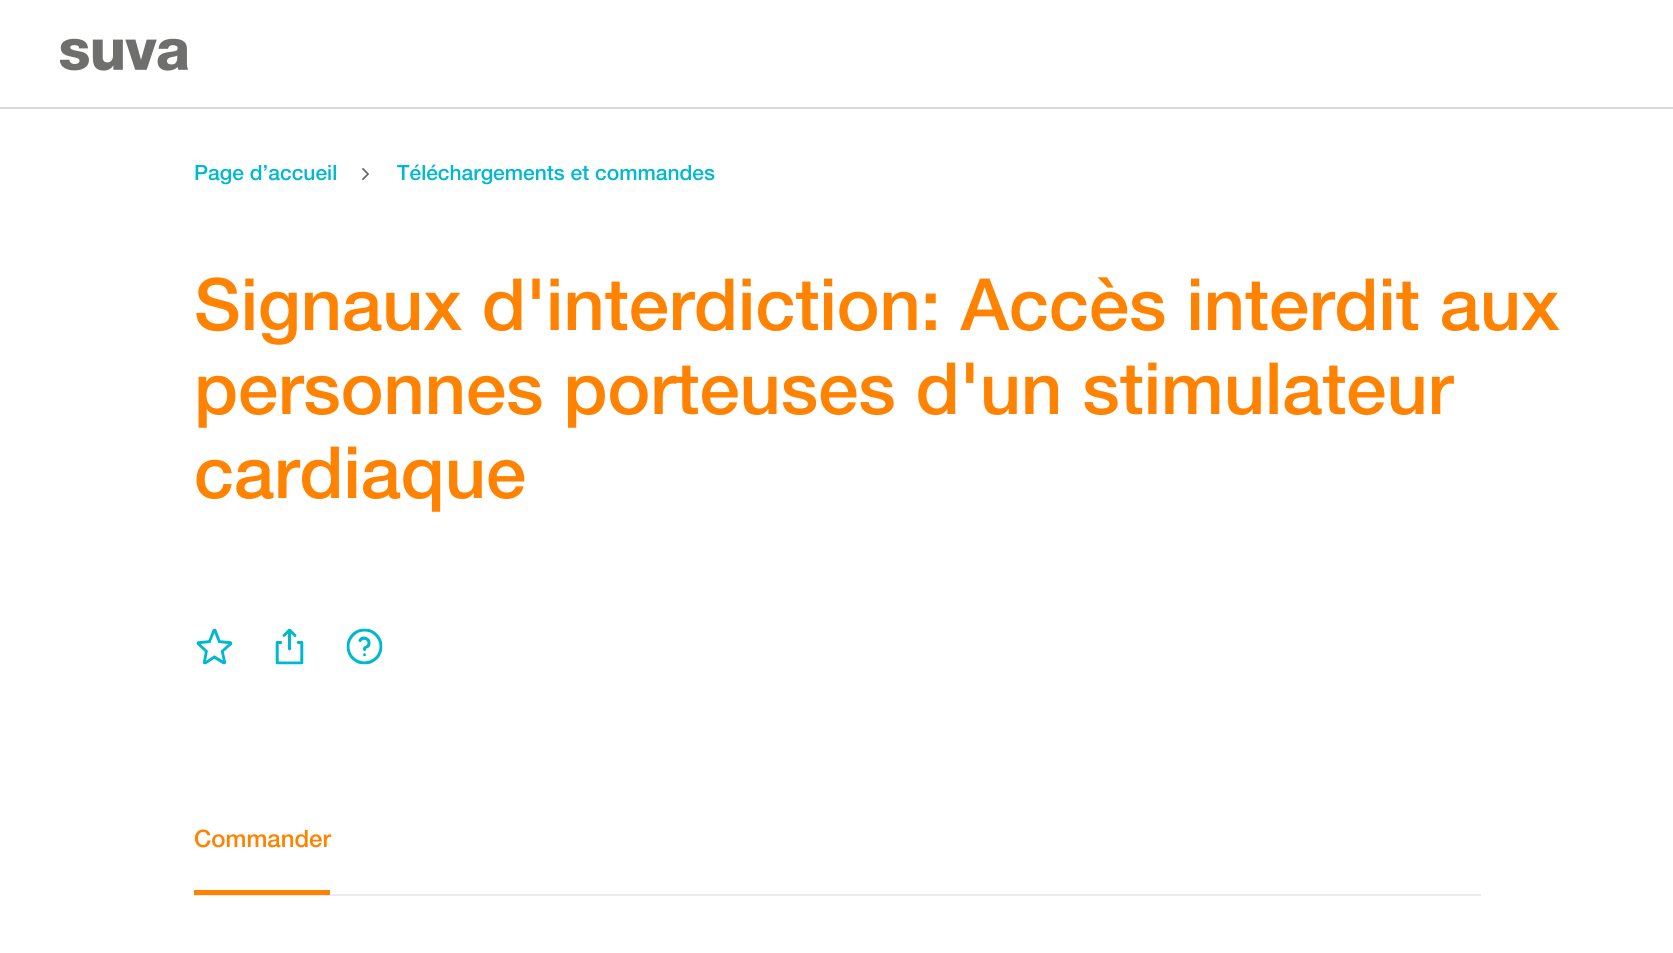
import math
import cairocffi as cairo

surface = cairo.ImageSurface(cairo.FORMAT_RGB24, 1673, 953)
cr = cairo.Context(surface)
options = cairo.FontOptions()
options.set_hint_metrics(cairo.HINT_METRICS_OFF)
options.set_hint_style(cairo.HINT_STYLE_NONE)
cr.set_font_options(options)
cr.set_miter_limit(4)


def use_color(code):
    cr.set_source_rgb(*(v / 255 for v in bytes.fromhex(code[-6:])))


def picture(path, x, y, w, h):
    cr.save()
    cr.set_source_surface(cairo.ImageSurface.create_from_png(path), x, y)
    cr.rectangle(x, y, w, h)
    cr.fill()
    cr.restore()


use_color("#ffffff")
cr.paint()
use_color("#d9d9d9")
cr.rectangle(0, 107, 1673, 2)
cr.fill()
picture("img1.png", 60, 38, 129, 33)
cr.select_font_face("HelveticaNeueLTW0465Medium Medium")
cr.set_font_size(21)
use_color("#00b8cf")
cr.move_to(194, 180)
cr.show_text("Page d’accueil")
picture("img2.png", 362, 168, 7, 12)
cr.move_to(397, 180)
cr.show_text("Téléchargements et commandes")
cr.set_font_size(72)
use_color("#ff8200")
cr.move_to(194, 330)
cr.show_text("Signaux d'interdiction: Accès interdit aux")
cr.move_to(194, 414)
cr.show_text("personnes porteuses d'un stimulateur")
cr.move_to(194, 498)
cr.show_text("cardiaque")
picture("img3.png", 196, 628, 37, 37)
picture("img4.png", 275, 628, 29, 37)
picture("img5.png", 346, 628, 37, 37)
use_color("#ebebeb")
cr.rectangle(194, 894, 1287, 2)
cr.fill()
use_color("#ff8200")
cr.rectangle(194, 890, 136, 5)
cr.fill()
cr.set_font_size(24)
cr.move_to(194, 847)
cr.show_text("Commander")
surface.write_to_png("result.png")
